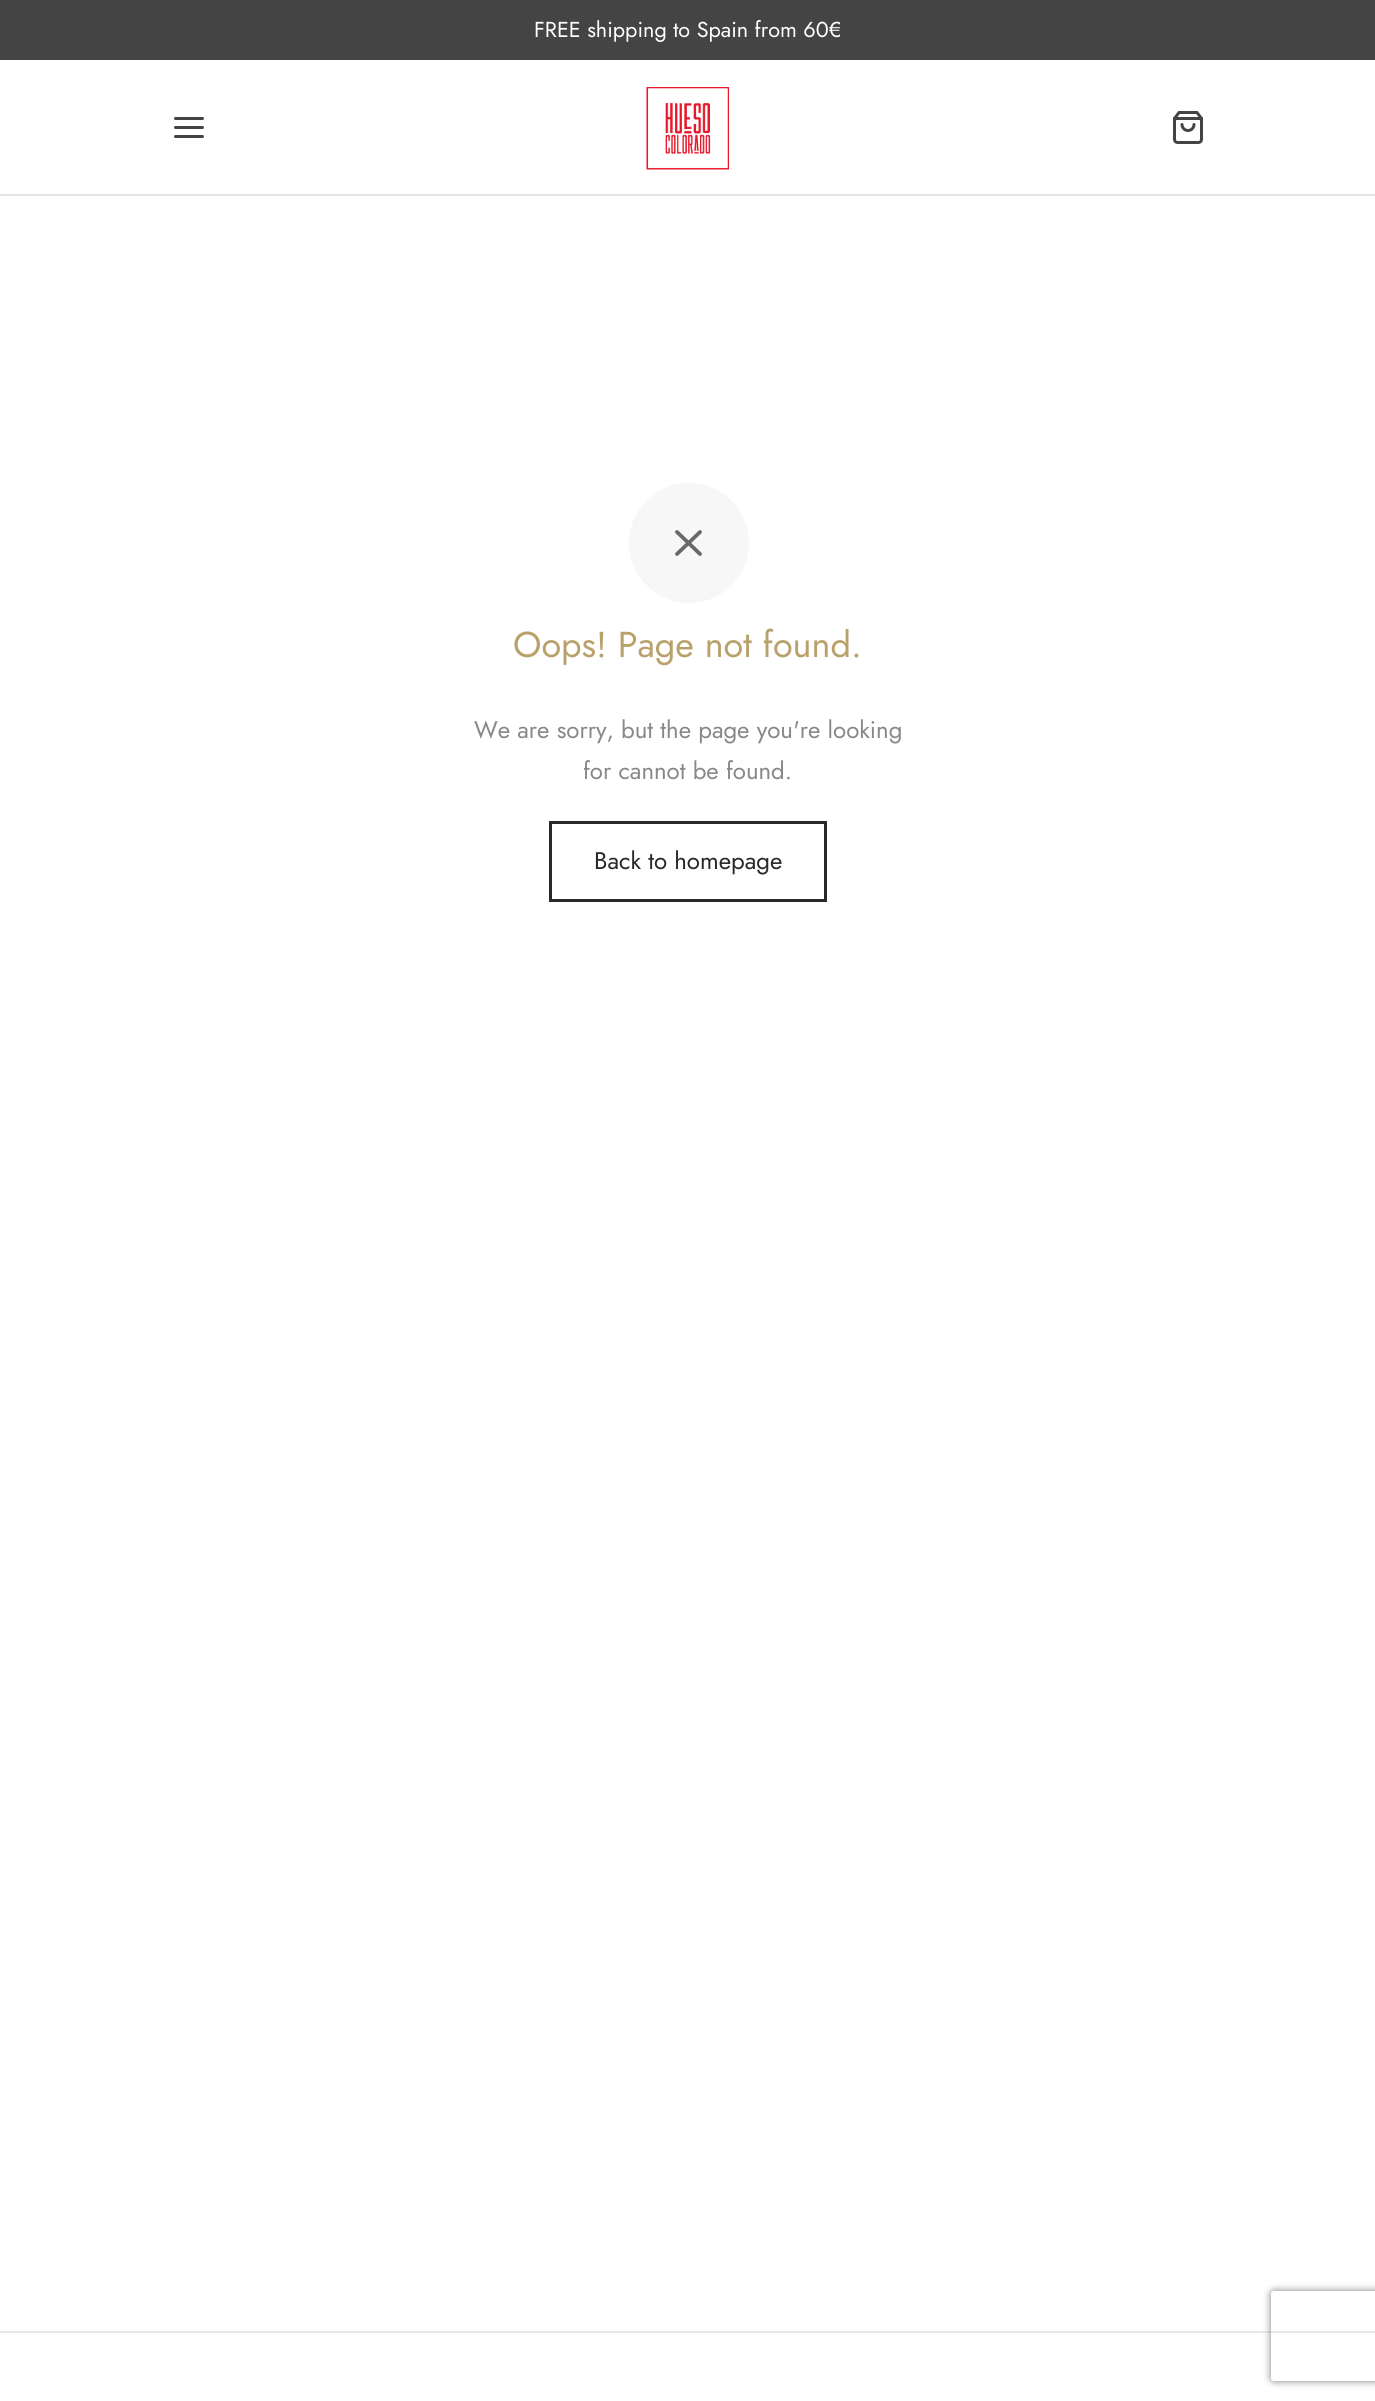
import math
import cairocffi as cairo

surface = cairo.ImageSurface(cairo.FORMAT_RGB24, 1375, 2401)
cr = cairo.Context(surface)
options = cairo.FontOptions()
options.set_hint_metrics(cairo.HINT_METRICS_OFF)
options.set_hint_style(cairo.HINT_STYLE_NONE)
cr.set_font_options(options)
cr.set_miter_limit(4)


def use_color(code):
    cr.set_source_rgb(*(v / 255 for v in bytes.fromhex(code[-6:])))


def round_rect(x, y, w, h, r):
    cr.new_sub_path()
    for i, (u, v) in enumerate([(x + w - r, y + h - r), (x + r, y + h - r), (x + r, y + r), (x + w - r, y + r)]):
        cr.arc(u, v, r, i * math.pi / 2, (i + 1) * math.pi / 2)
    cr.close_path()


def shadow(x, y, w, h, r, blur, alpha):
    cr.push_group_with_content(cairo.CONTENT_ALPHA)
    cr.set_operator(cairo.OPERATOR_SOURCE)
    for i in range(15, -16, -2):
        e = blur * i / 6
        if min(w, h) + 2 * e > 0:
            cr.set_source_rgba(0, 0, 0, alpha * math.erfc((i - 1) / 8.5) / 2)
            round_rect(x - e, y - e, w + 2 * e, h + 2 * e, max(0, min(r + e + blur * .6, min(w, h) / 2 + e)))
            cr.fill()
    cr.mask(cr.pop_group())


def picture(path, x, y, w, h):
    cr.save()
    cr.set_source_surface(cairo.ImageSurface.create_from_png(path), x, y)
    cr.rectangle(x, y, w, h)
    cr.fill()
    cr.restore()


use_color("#ffffff")
cr.paint()
use_color("#444444")
cr.rectangle(0, 0, 1375, 60)
cr.fill()
cr.select_font_face("Jost")
cr.set_font_size(21.6)
use_color("#ffffff")
cr.move_to(534, 37)
cr.show_text("FREE shipping to Spain from 60€")
cr.new_path()
cr.move_to(175.5, 127.5)
cr.line_to(202.5, 127.5)
cr.move_to(175.5, 118.5)
cr.line_to(202.5, 118.5)
cr.move_to(175.5, 136.5)
cr.line_to(202.5, 136.5)
use_color("#444444")
cr.set_line_width(3)
cr.set_line_cap(cairo.LINE_CAP_ROUND)
cr.set_line_join(cairo.LINE_JOIN_ROUND)
cr.stroke()
picture("img1.png", 646, 87, 83, 83)
picture("img2.png", 1173, 111, 30, 33)
use_color("#e6e6e6")
cr.rectangle(0, 194, 1375, 2)
cr.fill()
use_color("#f7f7f7")
cr.arc(689, 543, 60, 0, 2 * math.pi)
cr.fill()
cr.new_path()
cr.move_to(700, 532)
cr.line_to(677, 554)
cr.move_to(677, 532)
cr.line_to(700, 554)
use_color("#686868")
cr.set_line_width(3.8)
cr.stroke()
cr.set_font_size(36)
use_color("#b9a16b")
cr.move_to(513, 657)
cr.show_text("Oops! Page not found.")
cr.set_font_size(24)
use_color("#888888")
cr.move_to(474, 738)
cr.show_text("We are sorry, but the page you're looking")
cr.move_to(583, 779)
cr.show_text("for cannot be found.")
cr.rectangle(550.5, 822.5, 275, 78)
use_color("#282828")
cr.set_line_width(3)
cr.set_line_cap(cairo.LINE_CAP_BUTT)
cr.set_line_join(cairo.LINE_JOIN_MITER)
cr.stroke()
cr.move_to(594, 869)
cr.show_text("Back to homepage")
use_color("#e6e6e6")
cr.rectangle(0, 2331, 1375, 2)
cr.fill()
cr.save()
cr.set_fill_rule(cairo.FILL_RULE_EVEN_ODD)
cr.new_path()
cr.move_to(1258, 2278)
cr.line_to(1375, 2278)
cr.line_to(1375, 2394)
cr.line_to(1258, 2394)
cr.close_path()
cr.move_to(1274, 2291)
cr.line_to(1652, 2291)
cr.curve_to(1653.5, 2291, 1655, 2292.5, 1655, 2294)
cr.line_to(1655, 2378)
cr.curve_to(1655, 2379.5, 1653.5, 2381, 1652, 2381)
cr.line_to(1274, 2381)
cr.curve_to(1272.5, 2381, 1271, 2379.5, 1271, 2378)
cr.line_to(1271, 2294)
cr.curve_to(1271, 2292.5, 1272.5, 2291, 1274, 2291)
cr.close_path()
cr.clip()
use_color("#808080")
shadow(1271, 2291, 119, 90, 3, 4, 1)
cr.restore()
surface.write_to_png("result.png")
